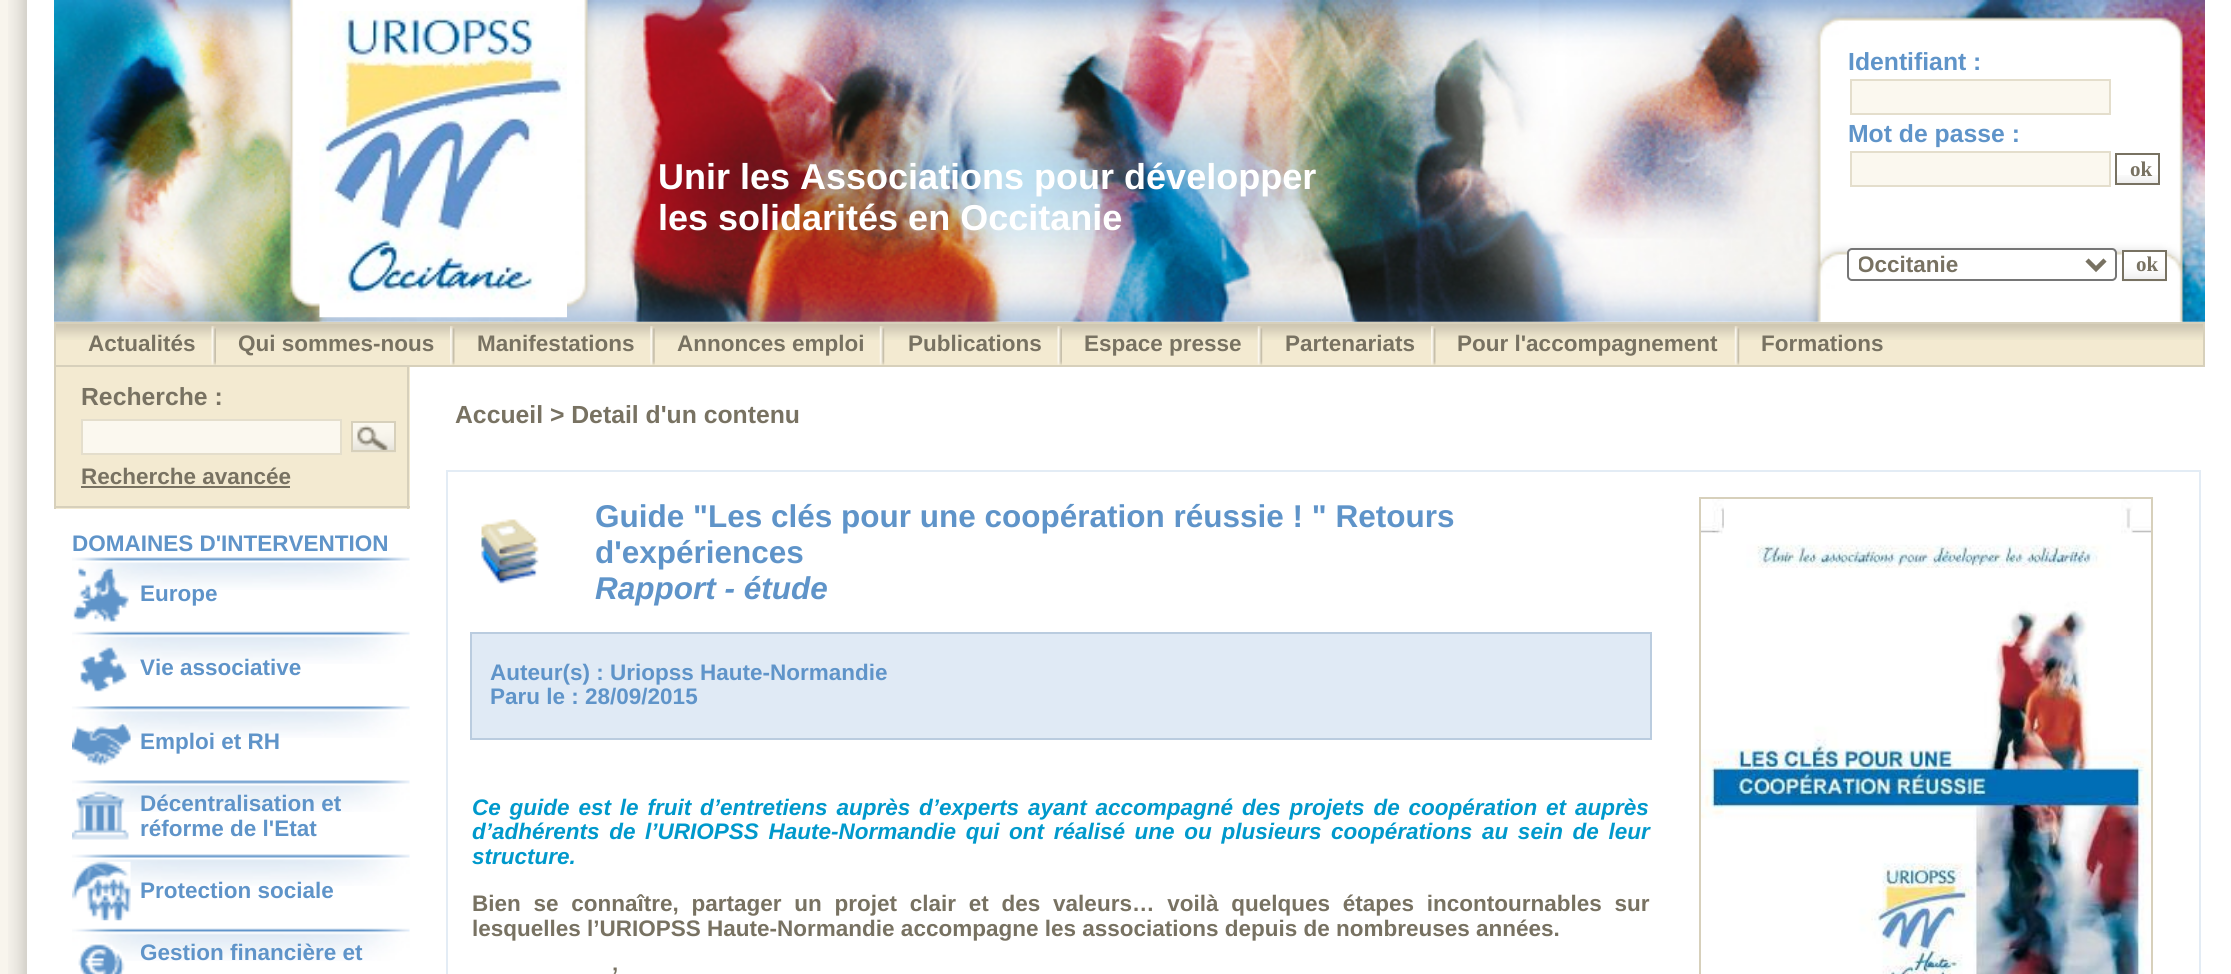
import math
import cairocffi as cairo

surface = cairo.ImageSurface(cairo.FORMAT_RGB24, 2231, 974)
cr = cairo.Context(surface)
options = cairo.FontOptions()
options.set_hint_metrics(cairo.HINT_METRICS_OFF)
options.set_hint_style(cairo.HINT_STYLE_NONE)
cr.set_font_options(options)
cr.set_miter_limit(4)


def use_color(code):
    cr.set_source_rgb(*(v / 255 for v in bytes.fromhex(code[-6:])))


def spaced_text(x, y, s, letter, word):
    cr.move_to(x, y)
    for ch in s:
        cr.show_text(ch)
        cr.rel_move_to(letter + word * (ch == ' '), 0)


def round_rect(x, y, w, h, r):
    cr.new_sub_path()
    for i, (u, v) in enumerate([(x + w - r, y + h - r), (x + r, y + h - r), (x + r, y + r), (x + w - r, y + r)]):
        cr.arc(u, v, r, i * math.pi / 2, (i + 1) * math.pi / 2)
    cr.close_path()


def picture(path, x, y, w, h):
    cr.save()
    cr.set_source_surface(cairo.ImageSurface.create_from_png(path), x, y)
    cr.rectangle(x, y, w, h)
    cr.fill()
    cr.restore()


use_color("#f8f5ed")
cr.paint()
picture("img1.png", 8, 0, 19, 974)
use_color("#ffffff")
cr.rectangle(27, 0, 2204, 974)
cr.fill()
picture("img2.png", 54, 0, 2151, 322)
picture("img3.png", 319, 11, 248, 307)
cr.select_font_face("Liberation Sans", cairo.FONT_SLANT_NORMAL, cairo.FONT_WEIGHT_BOLD)
cr.set_font_size(36)
cr.move_to(658, 189)
cr.show_text("Unir les Associations pour développer")
cr.move_to(658, 230)
cr.show_text("les solidarités en Occitanie")
cr.set_font_size(24.75)
use_color("#5f94c9")
cr.move_to(1848, 70)
cr.show_text("Identifiant :")
use_color("#fbf8ef")
cr.rectangle(1851, 80, 259, 34)
cr.fill_preserve()
use_color("#e4decc")
cr.stroke()
use_color("#5f94c9")
cr.move_to(1848, 142)
cr.show_text("Mot de passe :")
use_color("#fbf8ef")
cr.rectangle(1851, 152, 259, 34)
cr.fill_preserve()
use_color("#e4decc")
cr.stroke()
picture("img4.png", 2117, 175, 41, 8)
cr.rectangle(2116, 154, 43, 30)
use_color("#787262")
cr.stroke()
cr.select_font_face("Liberation Serif", cairo.FONT_SLANT_NORMAL, cairo.FONT_WEIGHT_BOLD)
cr.set_font_size(21)
cr.move_to(2130, 176)
cr.show_text("ok")
use_color("#ffffff")
round_rect(1848, 249, 268, 31, 4)
cr.fill_preserve()
use_color("#767676")
cr.stroke()
cr.new_path()
cr.move_to(2087, 260)
cr.line_to(2096, 269)
cr.line_to(2105, 260)
use_color("#787262")
cr.set_line_width(4.5)
cr.stroke()
cr.save()
cr.rectangle(1859, 250, 220, 29)
cr.clip()
cr.select_font_face("Liberation Sans", cairo.FONT_SLANT_NORMAL, cairo.FONT_WEIGHT_BOLD)
cr.set_font_size(22.5)
cr.move_to(1857, 272)
cr.show_text("Occitanie")
cr.restore()
picture("img5.png", 2121, 252, 46, 30)
cr.rectangle(2123, 251, 43, 29)
cr.set_line_width(2)
cr.stroke()
cr.move_to(2136, 271)
cr.show_text("ok")
use_color("#f3ead1")
cr.rectangle(56, 340, 2147, 25)
cr.fill()
picture("img6.png", 56, 324, 2147, 16)
cr.rectangle(56, 367, 354, 142)
cr.fill()
use_color("#d7d0bb")
cr.rectangle(407, 365, 2, 144)
cr.fill()
cr.rectangle(54, 506, 356, 2)
cr.fill()
cr.rectangle(54, 365, 2, 144)
cr.fill()
cr.rectangle(55, 323, 2149, 43)
cr.stroke()
cr.select_font_face("Liberation Sans", cairo.FONT_SLANT_NORMAL, cairo.FONT_WEIGHT_BOLD)
cr.set_font_size(22.5)
use_color("#787262")
cr.move_to(88, 351)
cr.show_text("Actualités")
picture("img7.png", 211, 326, 5, 39)
cr.move_to(238, 351)
cr.show_text("Qui sommes-nous")
picture("img8.png", 450, 326, 5, 39)
cr.move_to(477, 351)
cr.show_text("Manifestations")
picture("img9.png", 650, 326, 5, 39)
cr.move_to(677, 351)
cr.show_text("Annonces emploi")
picture("img10.png", 879, 326, 6, 39)
cr.move_to(908, 351)
cr.show_text("Publications")
picture("img7.png", 1057, 326, 5, 39)
cr.move_to(1084, 351)
cr.show_text("Espace presse")
picture("img10.png", 1257, 326, 6, 39)
cr.move_to(1285, 351)
cr.show_text("Partenariats")
picture("img8.png", 1431, 326, 5, 39)
cr.move_to(1457, 351)
cr.show_text("Pour l'accompagnement")
picture("img11.png", 1734, 326, 6, 39)
cr.move_to(1761, 351)
cr.show_text("Formations")
cr.set_font_size(24.75)
cr.move_to(81, 405)
cr.show_text("Recherche :")
use_color("#fbf8ef")
cr.rectangle(82, 420, 259, 34)
cr.fill_preserve()
use_color("#e4decc")
cr.stroke()
picture("img12.png", 351, 423, 45, 30)
cr.rectangle(352, 422, 43, 29)
use_color("#d7d0bb")
cr.stroke()
cr.set_font_size(22.5)
use_color("#787262")
cr.move_to(81, 484)
cr.show_text("Recherche avancée")
cr.rectangle(81, 486, 209, 2)
cr.fill()
use_color("#5f94c9")
cr.move_to(72, 551)
cr.show_text("DOMAINES D'INTERVENTION")
picture("img13.png", 72, 557, 338, 33)
picture("img14.png", 73, 567, 56, 55)
cr.move_to(140, 601)
cr.show_text("Europe")
picture("img15.png", 72, 631, 338, 33)
picture("img16.png", 80, 647, 47, 45)
cr.move_to(140, 675)
cr.show_text("Vie associative")
picture("img17.png", 72, 706, 338, 32)
picture("img18.png", 72, 722, 59, 44)
cr.move_to(140, 749)
cr.show_text("Emploi et RH")
picture("img19.png", 72, 780, 338, 32)
picture("img20.png", 72, 791, 57, 49)
cr.move_to(140, 811)
cr.show_text("Décentralisation et")
cr.move_to(140, 836)
cr.show_text("réforme de l'Etat")
picture("img21.png", 72, 854, 338, 32)
picture("img22.png", 72, 861, 59, 60)
cr.move_to(140, 898)
cr.show_text("Protection sociale")
picture("img15.png", 72, 928, 338, 33)
picture("img23.png", 78, 942, 47, 32)
cr.move_to(140, 960)
cr.show_text("Gestion financière et")
cr.set_font_size(24.75)
use_color("#787262")
cr.move_to(455, 423)
cr.show_text("Accueil > Detail d'un contenu")
cr.rectangle(447, 471, 1753, 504)
use_color("#e3ecf5")
cr.stroke()
picture("img24.png", 481, 519, 58, 65)
cr.set_font_size(31.5)
use_color("#5f94c9")
cr.move_to(595, 527)
cr.show_text("Guide \"Les clés pour une coopération réussie ! \" Retours")
cr.move_to(595, 563)
cr.show_text("d'expériences")
cr.select_font_face("Liberation Sans", cairo.FONT_SLANT_ITALIC, cairo.FONT_WEIGHT_BOLD)
cr.move_to(595, 599)
cr.show_text("Rapport - étude")
use_color("#e0eaf5")
cr.rectangle(471, 633, 1180, 106)
cr.fill_preserve()
use_color("#baccdf")
cr.stroke()
cr.select_font_face("Liberation Sans", cairo.FONT_SLANT_NORMAL, cairo.FONT_WEIGHT_BOLD)
cr.set_font_size(22.5)
use_color("#5f94c9")
cr.move_to(490, 680)
cr.show_text("Auteur(s) : Uriopss Haute-Normandie")
cr.move_to(490, 704)
cr.show_text("Paru le : 28/09/2015")
cr.select_font_face("Liberation Sans", cairo.FONT_SLANT_ITALIC, cairo.FONT_WEIGHT_BOLD)
use_color("#0099cc")
spaced_text(472, 815, "Ce guide est le fruit d’entretiens auprès d’experts ayant accompagné des projets de coopération et auprès", 0, 2.6)
spaced_text(472, 839, "d’adhérents de l’URIOPSS Haute-Normandie qui ont réalisé une ou plusieurs coopérations au sein de leur", 0, 3.4)
cr.move_to(472, 864)
cr.show_text("structure.")
cr.select_font_face("Liberation Sans", cairo.FONT_SLANT_NORMAL, cairo.FONT_WEIGHT_BOLD)
use_color("#787262")
spaced_text(472, 911, "Bien se connaître, partager un projet clair et des valeurs… voilà quelques étapes incontournables sur", 0, 6.5)
cr.move_to(472, 936)
cr.show_text("lesquelles l’URIOPSS Haute-Normandie accompagne les associations depuis de nombreuses années.")
cr.move_to(612, 983)
cr.show_text("’")
cr.rectangle(1700, 498, 452, 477)
use_color("#d7d0bb")
cr.stroke()
picture("img25.png", 1701, 499, 450, 475)
surface.write_to_png("result.png")
